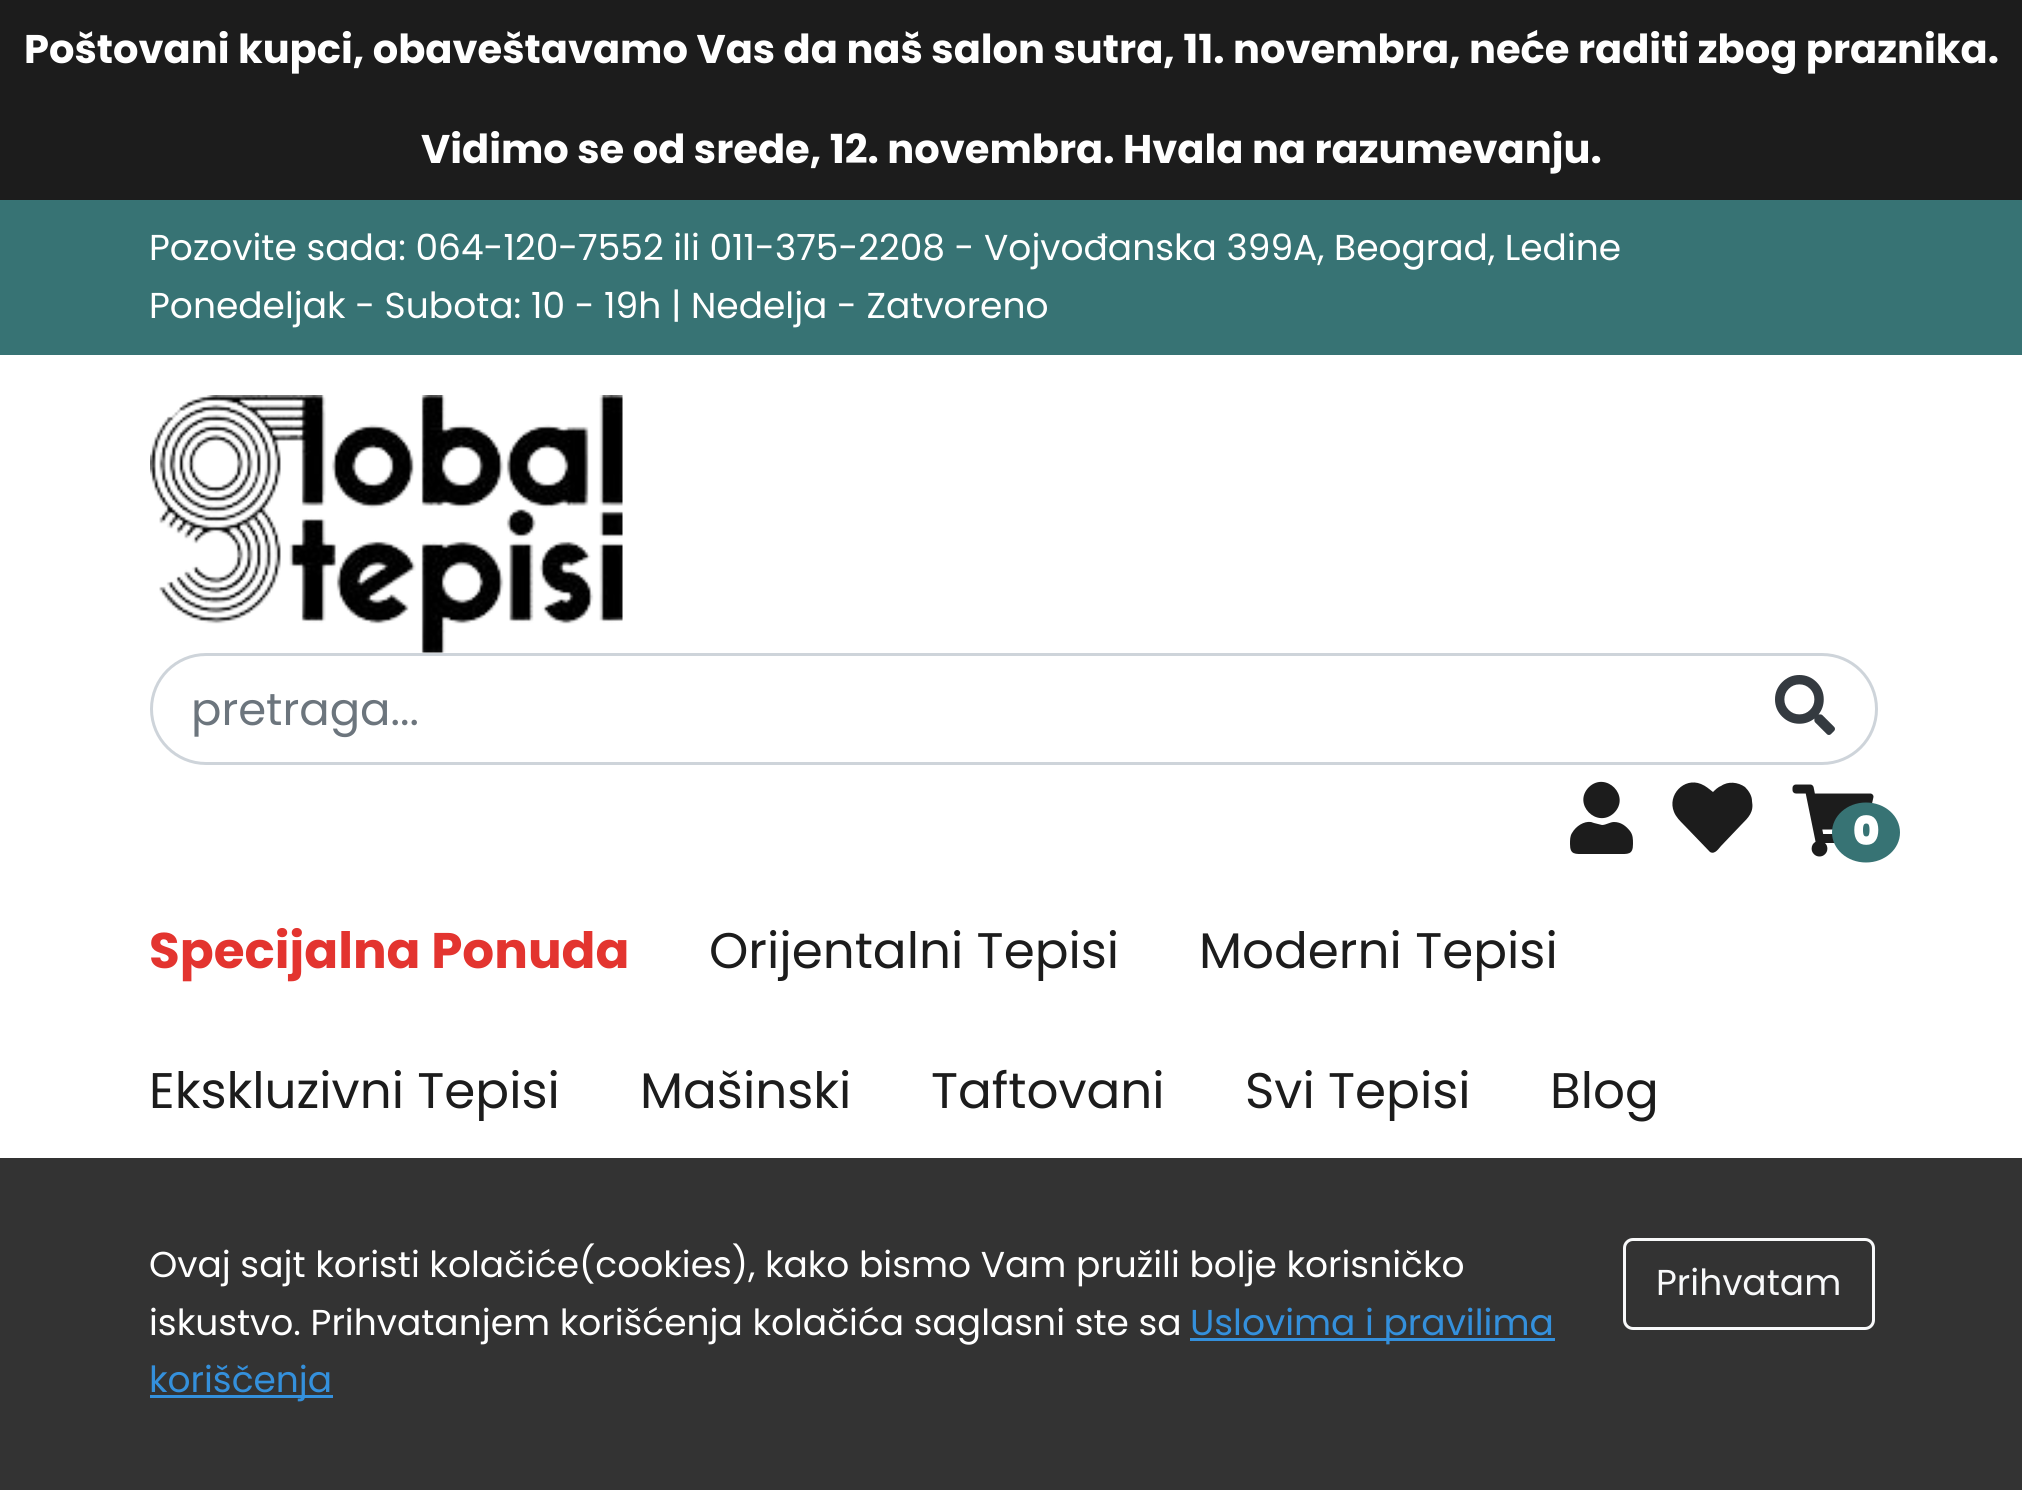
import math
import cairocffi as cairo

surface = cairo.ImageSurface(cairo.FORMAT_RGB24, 2022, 1490)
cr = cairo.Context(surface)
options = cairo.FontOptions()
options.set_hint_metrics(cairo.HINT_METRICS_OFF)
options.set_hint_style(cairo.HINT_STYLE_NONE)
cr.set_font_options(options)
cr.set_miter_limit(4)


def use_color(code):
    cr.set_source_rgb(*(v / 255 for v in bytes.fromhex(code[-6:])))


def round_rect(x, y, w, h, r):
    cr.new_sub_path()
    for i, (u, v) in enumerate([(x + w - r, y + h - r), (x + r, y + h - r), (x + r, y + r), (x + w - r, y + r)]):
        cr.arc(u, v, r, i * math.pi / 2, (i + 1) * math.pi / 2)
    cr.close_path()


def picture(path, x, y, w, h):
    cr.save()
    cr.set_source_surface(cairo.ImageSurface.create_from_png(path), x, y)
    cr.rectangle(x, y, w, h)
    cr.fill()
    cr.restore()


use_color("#ffffff")
cr.paint()
use_color("#1c1c1c")
cr.rectangle(0, 0, 2022, 200)
cr.fill()
cr.select_font_face("Poppins", cairo.FONT_SLANT_NORMAL, cairo.FONT_WEIGHT_BOLD)
cr.set_font_size(40)
use_color("#ffffff")
cr.move_to(24, 63)
cr.show_text("Poštovani kupci, obaveštavamo Vas da naš salon sutra, 11. novembra, neće raditi zbog praznika.")
cr.move_to(421, 163)
cr.show_text("Vidimo se od srede, 12. novembra. Hvala na razumevanju.")
use_color("#377374")
cr.rectangle(0, 200, 2022, 155)
cr.fill()
cr.select_font_face("Poppins")
cr.set_font_size(36)
use_color("#ffffff")
cr.move_to(149, 260)
cr.show_text("Pozovite sada: 064-120-7552 ili 011-375-2208 - Vojvođanska 399A, Beograd, Ledine")
cr.move_to(149, 318)
cr.show_text("Ponedeljak - Subota: 10 - 19h | Nedelja - Zatvoreno")
picture("img1.png", 150, 395, 473, 258)
round_rect(151.5, 654.5, 1725, 109, 54.5)
use_color("#ced4da")
cr.set_line_width(3)
cr.stroke()
cr.set_font_size(45)
use_color("#6c757d")
cr.move_to(191, 725)
cr.show_text("pretraga...")
picture("img2.png", 1775, 675, 60, 60)
use_color("#1c1c1c")
cr.new_path()
cr.move_to(1614, 813)
cr.curve_to(1597, 829, 1572, 804, 1589, 787)
cr.curve_to(1606, 771, 1631, 796, 1614, 813)
cr.close_path()
cr.move_to(1614, 822)
cr.curve_to(1621, 822, 1626, 826, 1630, 831)
cr.curve_to(1633, 835, 1633, 839, 1633, 844)
cr.curve_to(1633, 855, 1628, 854, 1618, 854)
cr.line_to(1585, 854)
cr.curve_to(1575, 854, 1570, 855, 1570, 844)
cr.curve_to(1570, 840, 1570, 836, 1572, 833)
cr.curve_to(1576, 826, 1584, 821, 1591, 822)
cr.line_to(1594, 823)
cr.line_to(1602, 825)
cr.curve_to(1606, 825, 1610, 822, 1614, 822)
cr.close_path()
cr.fill()
cr.new_path()
cr.move_to(1745, 787)
cr.curve_to(1749, 791, 1752, 796, 1752, 801)
cr.curve_to(1754, 812, 1749, 817, 1741, 825)
cr.line_to(1721, 846)
cr.curve_to(1719, 848, 1715, 855, 1710, 852)
cr.line_to(1684, 825)
cr.curve_to(1680, 821, 1676, 817, 1674, 812)
cr.curve_to(1667, 795, 1684, 777, 1701, 784)
cr.curve_to(1706, 786, 1709, 789, 1713, 792)
cr.curve_to(1715, 790, 1718, 787, 1721, 786)
cr.curve_to(1728, 781, 1738, 782, 1745, 787)
cr.close_path()
cr.fill()
picture("img3.png", 1792, 784, 82, 73)
use_color("#377374")
cr.new_path()
cr.move_to(1866, 802.5)
cr.curve_to(1885, 802.5, 1900, 816, 1900, 832.5)
cr.curve_to(1900, 849, 1885, 862.5, 1866, 862.5)
cr.curve_to(1847, 862.5, 1832, 849, 1832, 832.5)
cr.curve_to(1832, 816, 1847, 802.5, 1866, 802.5)
cr.close_path()
cr.fill()
cr.select_font_face("Poppins Black")
cr.set_font_size(40)
use_color("#ffffff")
cr.move_to(1853, 845)
cr.show_text("0")
cr.select_font_face("Poppins", cairo.FONT_SLANT_NORMAL, cairo.FONT_WEIGHT_BOLD)
cr.set_font_size(50)
use_color("#e3342f")
cr.move_to(149, 968)
cr.show_text("Specijalna Ponuda")
cr.select_font_face("Poppins")
use_color("#1c1c1c")
cr.move_to(709, 968)
cr.show_text("Orijentalni Tepisi")
cr.move_to(1199, 968)
cr.show_text("Moderni Tepisi")
cr.move_to(149, 1108)
cr.show_text("Ekskluzivni Tepisi")
cr.move_to(640, 1108)
cr.show_text("Mašinski")
cr.move_to(931, 1108)
cr.show_text("Taftovani")
cr.move_to(1245, 1108)
cr.show_text("Svi Tepisi")
cr.move_to(1550, 1108)
cr.show_text("Blog")
use_color("#333333")
cr.rectangle(0, 1158, 2022, 332)
cr.fill()
cr.set_font_size(36)
use_color("#ffffff")
cr.move_to(149, 1277)
cr.show_text("Ovaj sajt koristi kolačiće(cookies), kako bismo Vam pružili bolje korisničko")
cr.move_to(149, 1335)
cr.show_text("iskustvo. Prihvatanjem korišćenja kolačića saglasni ste sa")
use_color("#3490dc")
cr.rectangle(1190, 1338, 365, 3)
cr.fill()
cr.move_to(1190, 1335)
cr.show_text("Uslovima i pravilima")
cr.rectangle(150, 1395, 183, 3)
cr.fill()
cr.move_to(149, 1392)
cr.show_text("koriščenja")
round_rect(1624.5, 1239.5, 249, 89, 8.5)
use_color("#f8f9fa")
cr.stroke()
cr.move_to(1656, 1295)
cr.show_text("Prihvatam")
surface.write_to_png("result.png")
